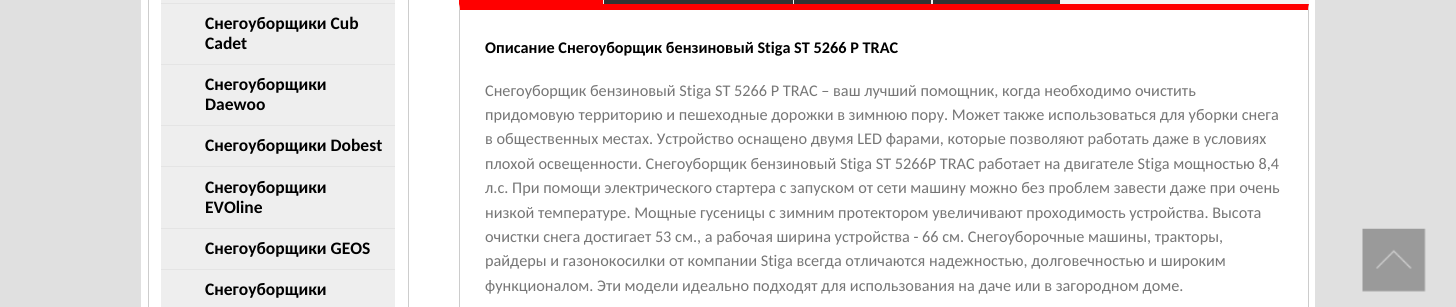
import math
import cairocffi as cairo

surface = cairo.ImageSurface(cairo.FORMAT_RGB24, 1456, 307)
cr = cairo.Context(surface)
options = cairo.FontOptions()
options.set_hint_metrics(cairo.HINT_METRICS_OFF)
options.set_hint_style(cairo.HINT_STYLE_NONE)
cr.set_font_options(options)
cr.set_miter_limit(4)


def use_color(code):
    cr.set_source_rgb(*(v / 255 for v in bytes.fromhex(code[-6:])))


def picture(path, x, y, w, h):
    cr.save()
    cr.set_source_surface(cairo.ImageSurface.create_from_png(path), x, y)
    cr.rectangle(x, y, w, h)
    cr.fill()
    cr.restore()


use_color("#e0e0e0")
cr.paint()
use_color("#ffffff")
cr.rectangle(141, 0, 1174, 307)
cr.fill()
cr.rectangle(148.5, -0.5, 260, 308)
use_color("#cdcdcd")
cr.set_line_width(1)
cr.stroke()
use_color("#eeeeee")
cr.rectangle(161, 0, 234, 3)
cr.fill()
use_color("#e4e4e4")
cr.rectangle(161, 3, 234, 1)
cr.fill()
use_color("#eeeeee")
cr.rectangle(161, 4, 234, 60)
cr.fill()
use_color("#e4e4e4")
cr.rectangle(161, 64, 234, 1)
cr.fill()
cr.select_font_face("Carlito", cairo.FONT_SLANT_NORMAL, cairo.FONT_WEIGHT_BOLD)
cr.set_font_size(17.5)
use_color("#000000")
cr.move_to(205, 29)
cr.show_text("Снегоуборщики Cub")
cr.move_to(205, 49)
cr.show_text("Cadet")
use_color("#eeeeee")
cr.rectangle(161, 65, 234, 60)
cr.fill()
use_color("#e4e4e4")
cr.rectangle(161, 125, 234, 1)
cr.fill()
use_color("#000000")
cr.move_to(205, 90)
cr.show_text("Снегоуборщики")
cr.move_to(205, 110)
cr.show_text("Daewoo")
use_color("#eeeeee")
cr.rectangle(161, 126, 234, 102)
cr.fill()
use_color("#e4e4e4")
cr.rectangle(161, 166, 234, 1)
cr.fill()
use_color("#000000")
cr.move_to(205, 151)
cr.show_text("Снегоуборщики Dobest")
use_color("#e4e4e4")
cr.rectangle(161, 228, 234, 1)
cr.fill()
use_color("#000000")
cr.move_to(205, 193)
cr.show_text("Снегоуборщики")
cr.move_to(205, 213)
cr.show_text("EVOline")
use_color("#eeeeee")
cr.rectangle(161, 229, 234, 40)
cr.fill()
use_color("#e4e4e4")
cr.rectangle(161, 269, 234, 1)
cr.fill()
use_color("#000000")
cr.move_to(205, 254)
cr.show_text("Снегоуборщики GEOS")
use_color("#eeeeee")
cr.rectangle(161, 270, 234, 37)
cr.fill()
use_color("#000000")
cr.move_to(205, 295)
cr.show_text("Снегоуборщики")
use_color("#f5f5f5")
cr.rectangle(603, 0, 706, 4)
cr.fill()
use_color("#ff0000")
cr.rectangle(459, 0, 144, 4)
cr.fill()
use_color("#333333")
cr.rectangle(604, 0, 189, 4)
cr.fill()
cr.rectangle(794, 0, 137, 4)
cr.fill()
cr.rectangle(933, 0, 127, 4)
cr.fill()
use_color("#ff0000")
cr.new_path()
cr.move_to(459, 4)
cr.line_to(1309, 4)
cr.line_to(1308, 10)
cr.line_to(460, 10)
cr.close_path()
cr.fill()
use_color("#cccccc")
cr.new_path()
cr.move_to(1309, 4)
cr.line_to(1309, 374)
cr.line_to(1308, 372)
cr.line_to(1308, 10)
cr.close_path()
cr.fill()
cr.new_path()
cr.move_to(459, 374)
cr.line_to(459, 4)
cr.line_to(460, 10)
cr.line_to(460, 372)
cr.close_path()
cr.fill()
cr.set_font_size(16.25)
use_color("#000000")
cr.move_to(485, 53)
cr.show_text("Описание Снегоуборщик бензиновый Stiga ST 5266 P TRAC")
cr.select_font_face("Carlito")
use_color("#767676")
cr.move_to(485, 96)
cr.show_text("Снегоуборщик бензиновый Stiga ST 5266 P TRAC – ваш лучший помощник, когда необходимо очистить")
cr.move_to(485, 120)
cr.show_text("придомовую территорию и пешеходные дорожки в зимнюю пору. Может также использоваться для уборки снега")
cr.move_to(485, 144)
cr.show_text("в общественных местах. Устройство оснащено двумя LED фарами, которые позволяют работать даже в условиях")
cr.move_to(485, 169)
cr.show_text("плохой освещенности. Снегоуборщик бензиновый Stiga ST 5266P TRAC работает на двигателе Stiga мощностью 8,4")
cr.move_to(485, 193)
cr.show_text("л.с. При помощи электрического стартера с запуском от сети машину можно без проблем завести даже при очень")
cr.move_to(485, 218)
cr.show_text("низкой температуре. Мощные гусеницы с зимним протектором увеличивают проходимость устройства. Высота")
cr.move_to(485, 242)
cr.show_text("очистки снега достигает 53 см., а рабочая ширина устройства - 66 см. Снегоуборочные машины, тракторы,")
cr.move_to(485, 266)
cr.show_text("райдеры и газонокосилки от компании Stiga всегда отличаются надежностью, долговечностью и широким")
cr.move_to(485, 291)
cr.show_text("функционалом. Эти модели идеально подходят для использования на даче или в загородном доме.")
picture("img1.png", 1362, 228, 64, 64)
surface.write_to_png("result.png")
